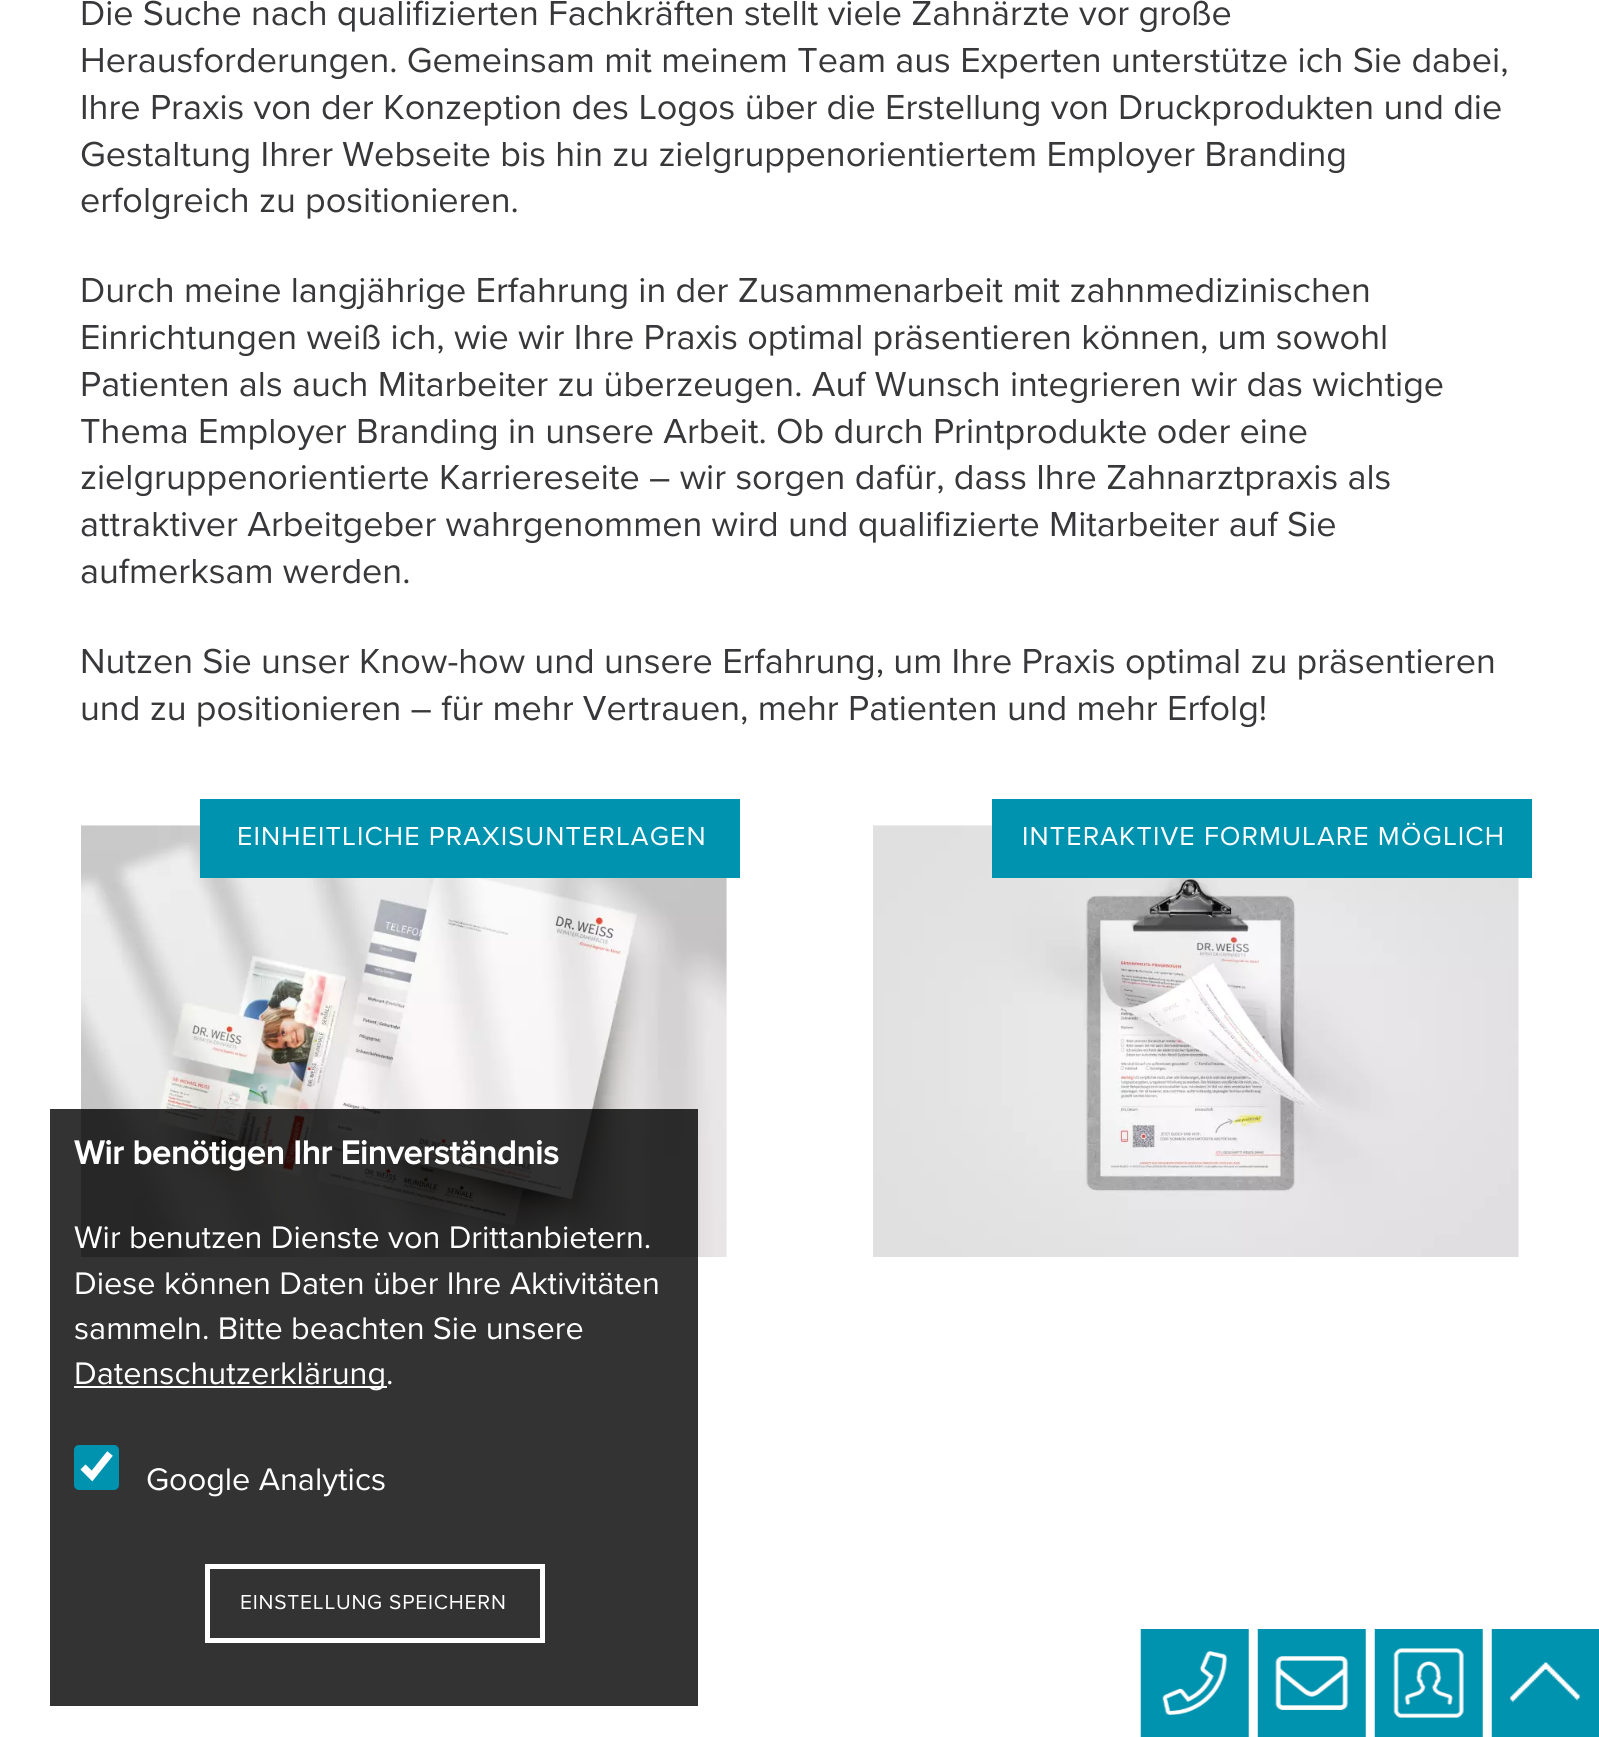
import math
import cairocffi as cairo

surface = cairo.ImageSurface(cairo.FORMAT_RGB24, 1599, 1737)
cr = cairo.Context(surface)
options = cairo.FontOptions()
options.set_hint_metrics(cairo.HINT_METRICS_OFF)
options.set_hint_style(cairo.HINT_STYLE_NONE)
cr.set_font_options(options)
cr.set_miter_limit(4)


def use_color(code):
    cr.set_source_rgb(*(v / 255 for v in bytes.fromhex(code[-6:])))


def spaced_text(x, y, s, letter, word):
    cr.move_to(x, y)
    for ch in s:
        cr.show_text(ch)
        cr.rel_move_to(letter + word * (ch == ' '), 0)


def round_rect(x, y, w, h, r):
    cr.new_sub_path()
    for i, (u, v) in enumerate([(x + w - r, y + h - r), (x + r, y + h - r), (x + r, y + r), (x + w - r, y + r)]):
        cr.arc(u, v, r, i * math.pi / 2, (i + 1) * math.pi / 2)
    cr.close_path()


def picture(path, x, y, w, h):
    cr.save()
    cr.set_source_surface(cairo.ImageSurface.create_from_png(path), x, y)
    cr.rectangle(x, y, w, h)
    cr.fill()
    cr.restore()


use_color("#ffffff")
cr.paint()
cr.select_font_face("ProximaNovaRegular")
cr.set_font_size(36)
use_color("#38383b")
cr.move_to(80, 25)
cr.show_text("Die Suche nach qualifizierten Fachkräften stellt viele Zahnärzte vor große")
cr.move_to(80, 72)
cr.show_text("Herausforderungen. Gemeinsam mit meinem Team aus Experten unterstütze ich Sie dabei,")
cr.move_to(80, 119)
cr.show_text("Ihre Praxis von der Konzeption des Logos über die Erstellung von Druckprodukten und die")
cr.move_to(80, 166)
cr.show_text("Gestaltung Ihrer Webseite bis hin zu zielgruppenorientiertem Employer Branding")
cr.move_to(80, 212)
cr.show_text("erfolgreich zu positionieren.")
cr.move_to(80, 302)
cr.show_text("Durch meine langjährige Erfahrung in der Zusammenarbeit mit zahnmedizinischen")
cr.move_to(80, 349)
cr.show_text("Einrichtungen weiß ich, wie wir Ihre Praxis optimal präsentieren können, um sowohl")
cr.move_to(80, 396)
cr.show_text("Patienten als auch Mitarbeiter zu überzeugen. Auf Wunsch integrieren wir das wichtige")
cr.move_to(80, 443)
cr.show_text("Thema Employer Branding in unsere Arbeit. Ob durch Printprodukte oder eine")
cr.move_to(80, 489)
cr.show_text("zielgruppenorientierte Karriereseite – wir sorgen dafür, dass Ihre Zahnarztpraxis als")
cr.move_to(80, 536)
cr.show_text("attraktiver Arbeitgeber wahrgenommen wird und qualifizierte Mitarbeiter auf Sie")
cr.move_to(80, 583)
cr.show_text("aufmerksam werden.")
cr.move_to(80, 673)
cr.show_text("Nutzen Sie unser Know-how und unsere Erfahrung, um Ihre Praxis optimal zu präsentieren")
cr.move_to(80, 720)
cr.show_text("und zu positionieren – für mehr Vertrauen, mehr Patienten und mehr Erfolg!")
picture("img1.png", 81, 825, 646, 433)
use_color("#0093af")
cr.rectangle(200, 799, 540, 79)
cr.fill()
cr.set_font_size(27)
use_color("#ffffff")
spaced_text(237, 845, "EINHEITLICHE PRAXISUNTERLAGEN", 1.1, 0)
picture("img2.png", 873, 825, 646, 432)
use_color("#0093af")
cr.rectangle(992, 799, 540, 79)
cr.fill()
use_color("#ffffff")
spaced_text(1022, 845, "INTERAKTIVE FORMULARE MÖGLICH", 1.1, 0)
cr.set_source_rgba(0, 0, 0, 0.8)
cr.rectangle(50, 1109, 648, 597)
cr.fill()
cr.select_font_face("Proxima Nova", cairo.FONT_SLANT_NORMAL, cairo.FONT_WEIGHT_BOLD)
cr.set_font_size(34)
use_color("#ffffff")
spaced_text(74, 1164, "Wir benötigen Ihr Einverständnis", -0.1, 0)
cr.select_font_face("ProximaNovaRegular")
cr.set_font_size(32.4)
cr.move_to(74, 1248)
cr.show_text("Wir benutzen Dienste von Drittanbietern.")
cr.move_to(74, 1294)
cr.show_text("Diese können Daten über Ihre Aktivitäten")
cr.move_to(74, 1339)
cr.show_text("sammeln. Bitte beachten Sie unsere")
cr.rectangle(74, 1386, 313, 2)
cr.fill()
cr.move_to(74, 1384)
cr.show_text("Datenschutzerklärung.")
use_color("#0093af")
round_rect(74, 1445, 45, 45, 5)
cr.fill()
cr.new_path()
cr.move_to(83, 1467)
cr.line_to(92, 1476)
cr.line_to(110, 1453.5)
use_color("#ffffff")
cr.set_line_width(7.2)
cr.stroke()
cr.move_to(146, 1490)
cr.show_text("Google Analytics")
cr.rectangle(207.5, 1566.5, 335, 74)
cr.set_line_width(5)
cr.stroke()
cr.set_font_size(21)
spaced_text(240, 1609, "EINSTELLUNG SPEICHERN", 0.8, 0)
picture("img3.png", 1140, 1629, 109, 108)
picture("img4.png", 1257, 1629, 109, 108)
picture("img5.png", 1374, 1629, 109, 108)
picture("img6.png", 1491, 1629, 108, 108)
surface.write_to_png("result.png")
